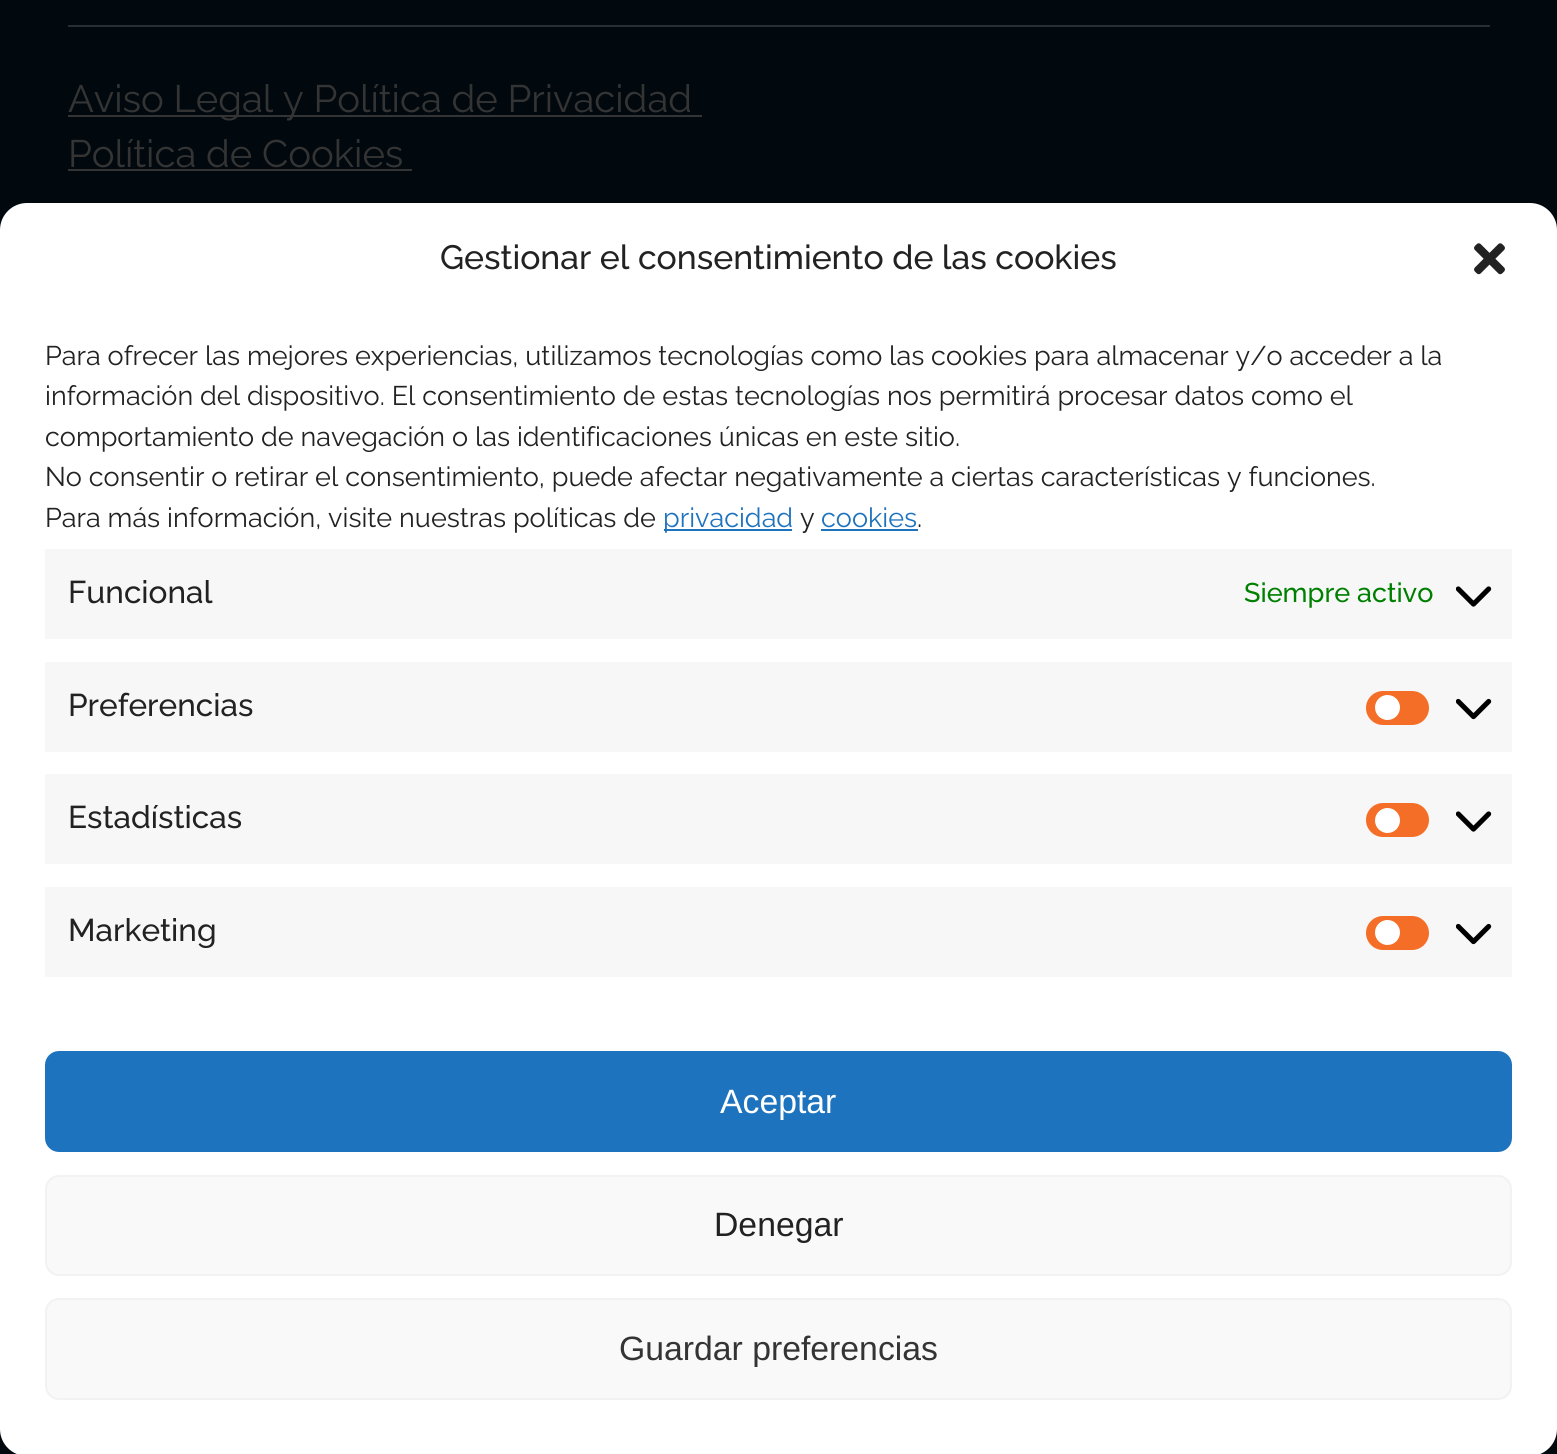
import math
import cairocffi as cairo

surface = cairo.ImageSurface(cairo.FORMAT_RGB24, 1557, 1454)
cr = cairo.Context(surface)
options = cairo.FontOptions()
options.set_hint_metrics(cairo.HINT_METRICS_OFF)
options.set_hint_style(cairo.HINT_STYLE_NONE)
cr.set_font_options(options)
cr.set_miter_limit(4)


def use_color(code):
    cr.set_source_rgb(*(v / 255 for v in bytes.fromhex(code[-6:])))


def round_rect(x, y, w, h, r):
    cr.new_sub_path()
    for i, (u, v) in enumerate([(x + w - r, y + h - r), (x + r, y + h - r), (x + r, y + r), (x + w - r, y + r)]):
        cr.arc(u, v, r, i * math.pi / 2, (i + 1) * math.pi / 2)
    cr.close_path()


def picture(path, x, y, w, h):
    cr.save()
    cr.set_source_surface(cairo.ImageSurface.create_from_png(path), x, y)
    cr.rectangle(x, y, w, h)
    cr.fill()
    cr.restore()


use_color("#01090e")
cr.paint()
use_color("#282e32")
cr.rectangle(68, 25, 1422, 2)
cr.fill()
use_color("#343434")
cr.rectangle(68, 115, 634, 2)
cr.fill()
cr.select_font_face("Raleway")
cr.set_font_size(38.25)
cr.move_to(68, 112)
cr.show_text("Aviso Legal y Política de Privacidad")
cr.move_to(68, 167)
cr.show_text("Política de Cookies")
cr.rectangle(68, 169, 344, 2)
cr.fill()
use_color("#ffffff")
round_rect(0, 203, 1557, 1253, 27)
cr.fill()
cr.select_font_face("Raleway Medium")
cr.set_font_size(33.75)
use_color("#222222")
cr.move_to(440, 269)
cr.show_text("Gestionar el consentimiento de las cookies")
picture("img1.png", 1474, 243, 31, 32)
cr.select_font_face("Raleway")
cr.set_font_size(27)
cr.move_to(45, 365)
cr.show_text("Para ofrecer las mejores experiencias, utilizamos tecnologías como las cookies para almacenar y/o acceder a la")
cr.move_to(45, 405)
cr.show_text("información del dispositivo. El consentimiento de estas tecnologías nos permitirá procesar datos como el")
cr.move_to(45, 446)
cr.show_text("comportamiento de navegación o las identificaciones únicas en este sitio.")
cr.move_to(45, 486)
cr.show_text("No consentir o retirar el consentimiento, puede afectar negativamente a ciertas características y funciones.")
cr.move_to(45, 527)
cr.show_text("Para más información, visite nuestras políticas de")
use_color("#1e73be")
cr.rectangle(664, 529, 128, 2)
cr.fill()
cr.move_to(663, 527)
cr.show_text("privacidad")
use_color("#222222")
cr.move_to(800, 527)
cr.show_text("y")
use_color("#1e73be")
cr.move_to(821, 527)
cr.show_text("cookies")
cr.rectangle(821, 529, 97, 2)
cr.fill()
use_color("#222222")
cr.move_to(917, 527)
cr.show_text(".")
use_color("#f7f7f7")
cr.rectangle(45, 549, 1467, 90)
cr.fill()
cr.select_font_face("Raleway Medium")
cr.set_font_size(31.5)
use_color("#222222")
cr.move_to(68, 603)
cr.show_text("Funcional")
cr.set_font_size(27)
use_color("#008000")
cr.move_to(1244, 602)
cr.show_text("Siempre activo")
picture("img2.png", 1456, 586, 36, 21)
use_color("#f7f7f7")
cr.rectangle(45, 662, 1467, 90)
cr.fill()
cr.set_font_size(31.5)
use_color("#222222")
cr.move_to(68, 716)
cr.show_text("Preferencias")
use_color("#f56e28")
round_rect(1366, 691, 63, 34, 17)
cr.fill()
use_color("#ffffff")
cr.arc(1387.5, 707.5, 12.5, 0, 2 * math.pi)
cr.fill()
picture("img3.png", 1456, 698, 36, 22)
use_color("#f7f7f7")
cr.rectangle(45, 774, 1467, 90)
cr.fill()
use_color("#222222")
cr.move_to(68, 828)
cr.show_text("Estadísticas")
use_color("#f56e28")
round_rect(1366, 803, 63, 34, 17)
cr.fill()
use_color("#ffffff")
cr.arc(1387.5, 820.5, 12.5, 0, 2 * math.pi)
cr.fill()
picture("img2.png", 1456, 811, 36, 21)
use_color("#f7f7f7")
cr.rectangle(45, 887, 1467, 90)
cr.fill()
use_color("#222222")
cr.move_to(68, 941)
cr.show_text("Marketing")
use_color("#f56e28")
round_rect(1366, 916, 63, 34, 17)
cr.fill()
use_color("#ffffff")
cr.arc(1387.5, 932.5, 12.5, 0, 2 * math.pi)
cr.fill()
picture("img3.png", 1456, 923, 36, 22)
use_color("#1e73be")
round_rect(46, 1052, 1465, 99, 13)
cr.fill_preserve()
cr.stroke()
cr.select_font_face("Liberation Sans")
cr.set_font_size(33.75)
use_color("#ffffff")
cr.move_to(720, 1113)
cr.show_text("Aceptar")
use_color("#f9f9f9")
round_rect(46, 1176, 1465, 99, 13)
cr.fill_preserve()
use_color("#f2f2f2")
cr.stroke()
use_color("#222222")
cr.move_to(714, 1236)
cr.show_text("Denegar")
use_color("#f9f9f9")
round_rect(46, 1299, 1465, 100, 13)
cr.fill_preserve()
use_color("#f2f2f2")
cr.stroke()
use_color("#343434")
cr.move_to(619, 1360)
cr.show_text("Guardar preferencias")
surface.write_to_png("result.png")
